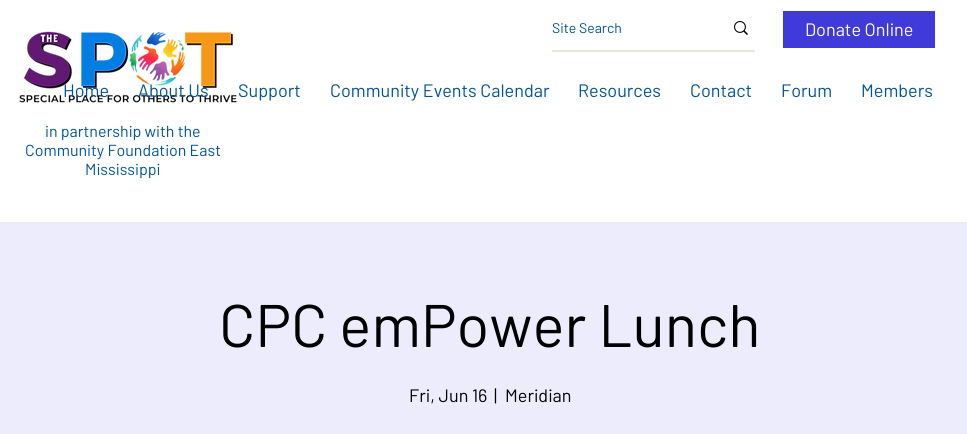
import math
import cairocffi as cairo

surface = cairo.ImageSurface(cairo.FORMAT_RGB24, 967, 434)
cr = cairo.Context(surface)
options = cairo.FontOptions()
options.set_hint_metrics(cairo.HINT_METRICS_OFF)
options.set_hint_style(cairo.HINT_STYLE_NONE)
cr.set_font_options(options)
cr.set_miter_limit(4)


def use_color(code):
    cr.set_source_rgb(*(v / 255 for v in bytes.fromhex(code[-6:])))


def picture(path, x, y, w, h):
    cr.save()
    cr.set_source_surface(cairo.ImageSurface.create_from_png(path), x, y)
    cr.rectangle(x, y, w, h)
    cr.fill()
    cr.restore()


use_color("#ffffff")
cr.paint()
use_color("#ebe5d6")
cr.rectangle(552, 50, 203, 2)
cr.fill()
cr.select_font_face("Barlow")
cr.set_font_size(14)
use_color("#015499")
cr.move_to(552, 33)
cr.show_text("Site Search")
picture("img1.png", 734, 21, 14, 14)
use_color("#413ada")
cr.rectangle(783, 11, 152, 37)
cr.fill()
cr.set_font_size(18)
use_color("#ffffff")
cr.move_to(805, 36)
cr.show_text("Donate Online")
picture("img2.png", 19, 31, 218, 72)
use_color("#015499")
cr.move_to(63, 97)
cr.show_text("Home")
cr.move_to(138, 97)
cr.show_text("About Us")
cr.move_to(238, 97)
cr.show_text("Support")
cr.move_to(330, 97)
cr.show_text("Community Events Calendar")
cr.move_to(578, 97)
cr.show_text("Resources")
cr.move_to(690, 97)
cr.show_text("Contact")
cr.move_to(781, 97)
cr.show_text("Forum")
cr.move_to(861, 97)
cr.show_text("Members")
cr.set_font_size(16)
cr.move_to(45, 137)
cr.show_text("in partnership with the")
cr.move_to(25, 156)
cr.show_text("Community Foundation East")
cr.move_to(85, 175)
cr.show_text("Mississippi")
use_color("#edecfc")
cr.rectangle(0, 222, 967, 212)
cr.fill()
cr.set_font_size(60)
use_color("#000000")
cr.move_to(219, 347)
cr.show_text("CPC emPower Lunch")
cr.set_font_size(18)
cr.move_to(409, 402)
cr.show_text("Fri, Jun 16")
cr.move_to(494, 402)
cr.show_text("|")
cr.move_to(505, 402)
cr.show_text("Meridian")
surface.write_to_png("result.png")
